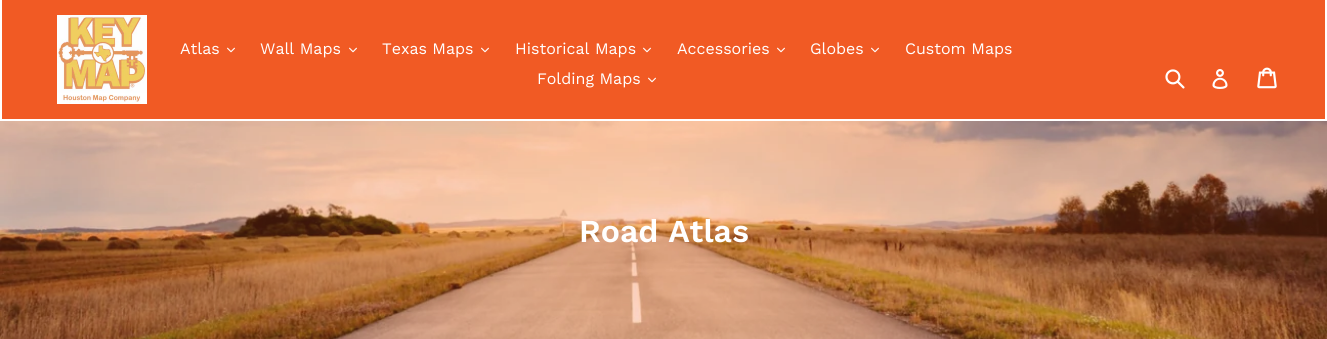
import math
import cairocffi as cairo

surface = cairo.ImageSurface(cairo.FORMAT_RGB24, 1327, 339)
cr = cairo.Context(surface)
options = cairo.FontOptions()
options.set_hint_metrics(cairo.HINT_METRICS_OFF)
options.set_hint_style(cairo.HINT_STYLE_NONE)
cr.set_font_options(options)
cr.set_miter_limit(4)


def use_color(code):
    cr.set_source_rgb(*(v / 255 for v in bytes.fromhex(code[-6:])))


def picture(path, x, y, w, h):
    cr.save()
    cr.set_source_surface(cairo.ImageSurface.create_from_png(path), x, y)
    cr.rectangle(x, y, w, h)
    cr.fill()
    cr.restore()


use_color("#f15a24")
cr.paint()
use_color("#ffffff")
cr.rectangle(1325, 0, 2, 121)
cr.fill()
cr.rectangle(0, 119, 1327, 2)
cr.fill()
cr.rectangle(0, 0, 2, 121)
cr.fill()
picture("img1.png", 57, 15, 90, 89)
cr.select_font_face("Work Sans")
cr.set_font_size(16)
cr.move_to(180, 54)
cr.show_text("Atlas")
picture("img2.png", 227, 47, 8, 6)
cr.move_to(260, 54)
cr.show_text("Wall Maps")
picture("img2.png", 349, 47, 8, 6)
cr.move_to(382, 54)
cr.show_text("Texas Maps")
picture("img2.png", 481, 47, 8, 6)
cr.move_to(515, 54)
cr.show_text("Historical Maps")
picture("img2.png", 643, 47, 8, 6)
cr.move_to(677, 54)
cr.show_text("Accessories")
picture("img2.png", 777, 47, 8, 6)
cr.move_to(810, 54)
cr.show_text("Globes")
picture("img2.png", 871, 47, 8, 6)
cr.move_to(905, 54)
cr.show_text("Custom Maps")
cr.move_to(537, 84)
cr.show_text("Folding Maps")
picture("img2.png", 648, 77, 8, 6)
picture("img3.png", 1165, 69, 20, 20)
picture("img4.png", 1212, 69, 16, 20)
picture("img5.png", 1257, 67, 20, 22)
picture("img6.png", 0, 121, 1327, 218)
cr.select_font_face("Work Sans SemiBold")
cr.set_font_size(32)
cr.move_to(579, 242)
cr.show_text("Road Atlas")
surface.write_to_png("result.png")
